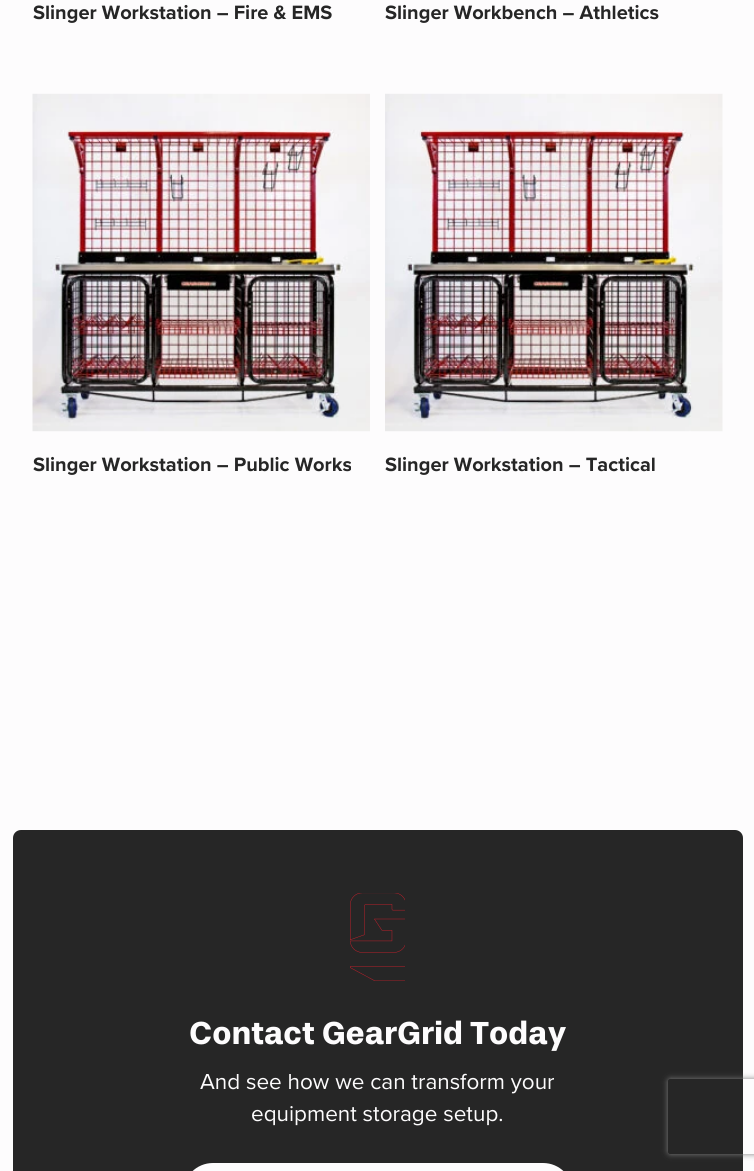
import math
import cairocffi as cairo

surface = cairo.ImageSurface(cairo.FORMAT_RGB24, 754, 1171)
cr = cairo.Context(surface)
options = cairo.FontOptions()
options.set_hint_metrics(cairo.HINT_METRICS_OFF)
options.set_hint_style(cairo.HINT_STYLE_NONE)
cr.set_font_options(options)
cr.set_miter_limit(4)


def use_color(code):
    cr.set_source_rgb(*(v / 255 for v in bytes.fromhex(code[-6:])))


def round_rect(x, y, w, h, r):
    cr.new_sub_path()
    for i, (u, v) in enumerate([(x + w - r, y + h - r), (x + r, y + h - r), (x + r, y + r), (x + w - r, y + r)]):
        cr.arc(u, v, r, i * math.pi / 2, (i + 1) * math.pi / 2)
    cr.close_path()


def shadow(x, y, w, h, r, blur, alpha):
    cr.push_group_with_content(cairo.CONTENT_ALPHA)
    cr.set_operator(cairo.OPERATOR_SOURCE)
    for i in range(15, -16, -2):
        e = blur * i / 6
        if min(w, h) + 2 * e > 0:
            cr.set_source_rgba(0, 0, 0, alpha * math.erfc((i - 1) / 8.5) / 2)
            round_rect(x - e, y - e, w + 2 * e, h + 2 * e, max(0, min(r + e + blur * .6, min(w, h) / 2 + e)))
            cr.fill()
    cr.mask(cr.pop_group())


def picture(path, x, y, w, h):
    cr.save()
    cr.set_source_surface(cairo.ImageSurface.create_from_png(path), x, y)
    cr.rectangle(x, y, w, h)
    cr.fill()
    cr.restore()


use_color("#fdfcfd")
cr.paint()
cr.select_font_face("Proxima Nova", cairo.FONT_SLANT_NORMAL, cairo.FONT_WEIGHT_BOLD)
cr.set_font_size(20)
use_color("#262626")
cr.move_to(33, 19)
cr.show_text("Slinger Workstation – Fire & EMS")
cr.move_to(385, 19)
cr.show_text("Slinger Workbench – Athletics")
picture("img1.png", 32, 93, 338, 339)
cr.move_to(33, 471)
cr.show_text("Slinger Workstation – Public Works")
picture("img2.png", 385, 93, 338, 339)
cr.move_to(385, 471)
cr.show_text("Slinger Workstation – Tactical")
round_rect(13, 830, 730, 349, 8)
cr.fill()
picture("img3.png", 350, 893, 55, 88)
cr.select_font_face("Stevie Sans", cairo.FONT_SLANT_NORMAL, cairo.FONT_WEIGHT_BOLD)
cr.set_font_size(32.5)
use_color("#fdfcfd")
cr.move_to(189, 1044)
cr.show_text("Contact GearGrid Today")
cr.select_font_face("Proxima Nova")
cr.set_font_size(22.5)
cr.move_to(200, 1089)
cr.show_text("And see how we can transform your")
cr.move_to(251, 1121)
cr.show_text("equipment storage setup.")
round_rect(183, 1163, 390, 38, 30)
cr.fill()
cr.save()
cr.set_fill_rule(cairo.FILL_RULE_EVEN_ODD)
cr.new_path()
cr.move_to(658, 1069)
cr.line_to(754, 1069)
cr.line_to(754, 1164)
cr.line_to(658, 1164)
cr.close_path()
cr.move_to(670.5, 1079)
cr.line_to(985.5, 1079)
cr.curve_to(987, 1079, 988, 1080, 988, 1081.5)
cr.line_to(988, 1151.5)
cr.curve_to(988, 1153, 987, 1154, 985.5, 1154)
cr.line_to(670.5, 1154)
cr.curve_to(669, 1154, 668, 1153, 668, 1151.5)
cr.line_to(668, 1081.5)
cr.curve_to(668, 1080, 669, 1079, 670.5, 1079)
cr.close_path()
cr.clip()
use_color("#808080")
shadow(668, 1079, 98, 75, 2.5, 3, 1)
cr.restore()
surface.write_to_png("result.png")
